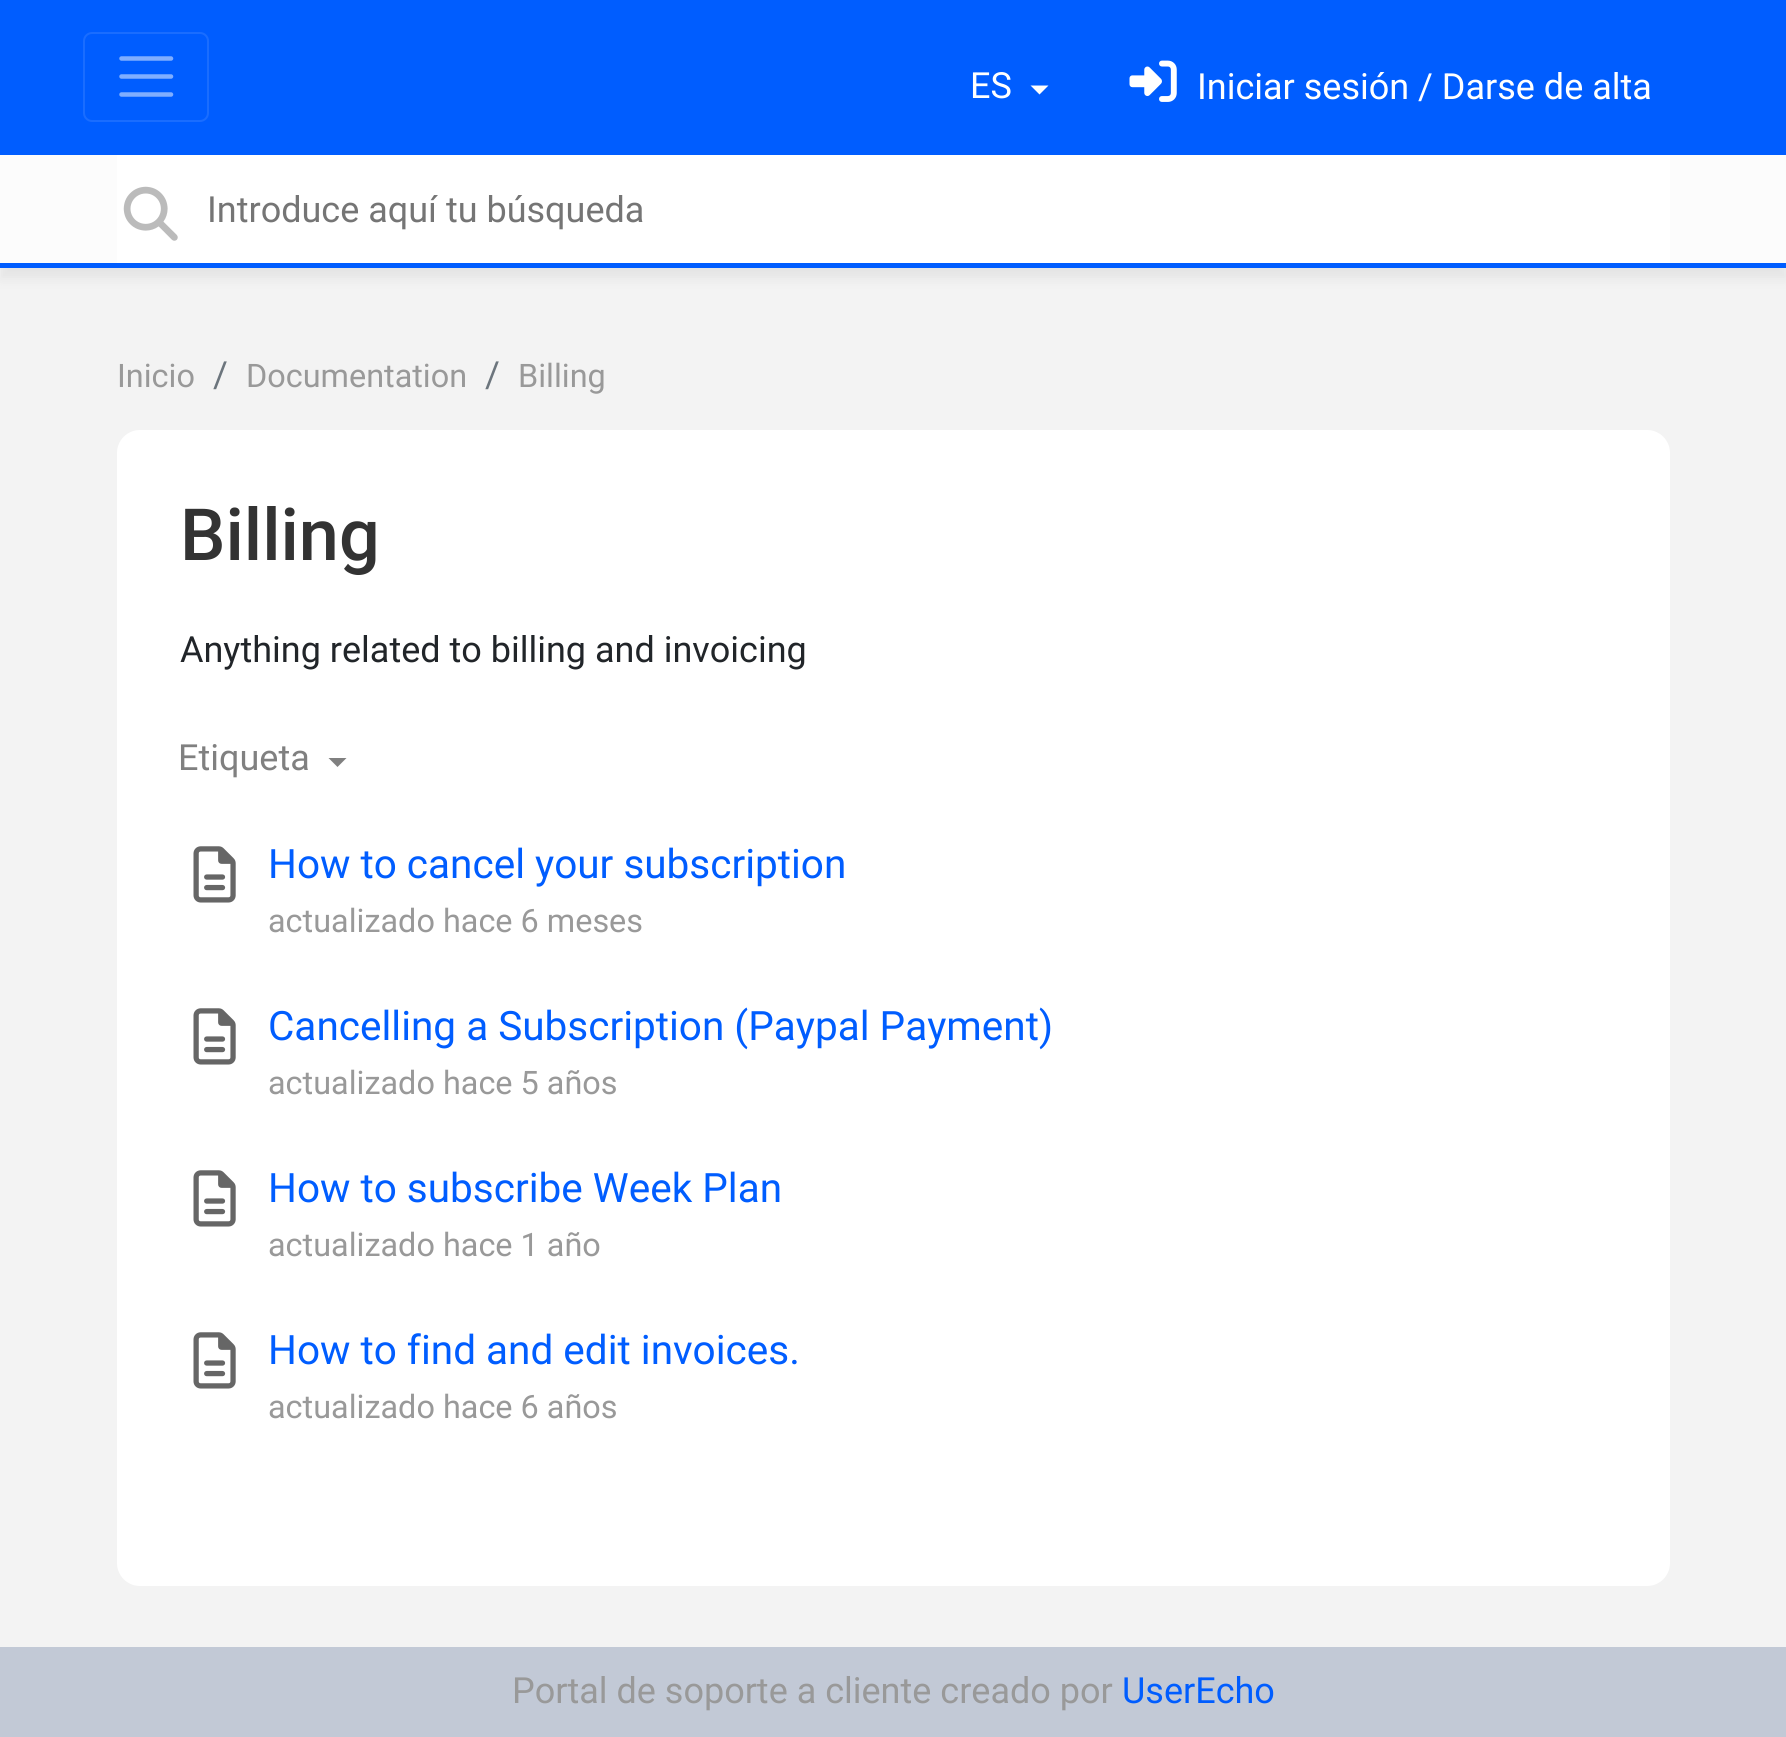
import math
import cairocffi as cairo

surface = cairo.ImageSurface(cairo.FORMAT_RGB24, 1786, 1737)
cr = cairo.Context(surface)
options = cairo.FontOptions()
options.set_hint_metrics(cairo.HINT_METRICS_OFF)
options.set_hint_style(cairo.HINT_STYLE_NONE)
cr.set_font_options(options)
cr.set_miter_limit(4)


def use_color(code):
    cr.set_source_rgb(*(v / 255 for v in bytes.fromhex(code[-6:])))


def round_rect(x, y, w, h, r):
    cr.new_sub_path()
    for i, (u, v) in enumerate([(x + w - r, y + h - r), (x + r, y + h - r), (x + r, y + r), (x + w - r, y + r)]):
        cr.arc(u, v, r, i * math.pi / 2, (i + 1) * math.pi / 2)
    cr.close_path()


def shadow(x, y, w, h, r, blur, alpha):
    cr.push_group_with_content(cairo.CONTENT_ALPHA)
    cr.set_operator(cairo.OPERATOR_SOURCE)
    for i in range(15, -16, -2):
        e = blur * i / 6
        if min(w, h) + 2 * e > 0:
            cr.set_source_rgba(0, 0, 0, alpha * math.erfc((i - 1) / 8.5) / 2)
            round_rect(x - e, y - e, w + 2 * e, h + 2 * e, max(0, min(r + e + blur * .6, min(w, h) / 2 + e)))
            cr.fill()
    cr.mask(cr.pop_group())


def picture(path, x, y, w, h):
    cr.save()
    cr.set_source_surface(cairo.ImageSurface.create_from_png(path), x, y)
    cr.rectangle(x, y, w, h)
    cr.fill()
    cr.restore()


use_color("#f3f3f3")
cr.paint()
use_color("#005dff")
cr.rectangle(0, 0, 1786, 155)
cr.fill()
round_rect(84, 33, 124, 88, 8)
use_color("#1a6dff")
cr.stroke()
cr.new_path()
cr.move_to(121.5, 58.5)
cr.line_to(171, 58.5)
cr.move_to(121.5, 76.5)
cr.line_to(171, 76.5)
cr.move_to(121.5, 94.5)
cr.line_to(171, 94.5)
use_color("#80aeff")
cr.set_line_width(4.5)
cr.set_line_cap(cairo.LINE_CAP_ROUND)
cr.stroke()
cr.select_font_face("Roboto")
cr.set_font_size(36)
use_color("#ffffff")
cr.move_to(970, 98)
cr.show_text("ES")
cr.new_path()
cr.move_to(1030.5, 85.5)
cr.line_to(1048.5, 85.5)
cr.line_to(1039.5, 94.5)
cr.close_path()
cr.fill()
picture("img1.png", 1129, 60, 48, 42)
cr.move_to(1197, 99)
cr.show_text("Iniciar sesión / Darse de alta")
use_color("#646464")
shadow(0, 167, 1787, 112, 0, 5.5, 0.1)
use_color("#fcfcfc")
cr.rectangle(0, 155, 1786, 108)
cr.fill()
use_color("#005dff")
cr.rectangle(0, 263, 1786, 5)
cr.fill()
use_color("#ffffff")
cr.rectangle(117, 155, 1553, 108)
cr.fill()
picture("img2.png", 123, 186, 55, 55)
use_color("#757575")
cr.move_to(207, 222)
cr.show_text("Introduce aquí tu búsqueda")
cr.set_font_size(32.4)
use_color("#999999")
cr.move_to(117, 387)
cr.show_text("Inicio")
cr.set_font_size(36)
use_color("#6c757d")
cr.move_to(213, 387)
cr.show_text("/")
cr.set_font_size(32.4)
use_color("#999999")
cr.move_to(246, 387)
cr.show_text("Documentation")
cr.set_font_size(36)
use_color("#6c757d")
cr.move_to(485, 387)
cr.show_text("/")
cr.set_font_size(32.4)
use_color("#999999")
cr.move_to(518, 387)
cr.show_text("Billing")
use_color("#ffffff")
round_rect(117, 430, 1553, 1156, 23)
cr.fill()
cr.select_font_face("Roboto Medium")
cr.set_font_size(72)
use_color("#333333")
cr.move_to(180, 560)
cr.show_text("Billing")
cr.select_font_face("Roboto")
cr.set_font_size(36)
use_color("#212529")
cr.move_to(180, 662)
cr.show_text("Anything related to billing and invoicing")
use_color("#808080")
cr.move_to(178, 770)
cr.show_text("Etiqueta")
cr.new_path()
cr.move_to(328.5, 758)
cr.line_to(346.5, 758)
cr.line_to(337.5, 767)
cr.close_path()
cr.fill()
picture("img3.png", 193, 846, 43, 57)
cr.set_font_size(40.5)
use_color("#005dff")
cr.move_to(268, 878)
cr.show_text("How to cancel your subscription")
cr.set_font_size(32.4)
use_color("#999999")
cr.move_to(268, 932)
cr.show_text("actualizado hace 6 meses")
picture("img3.png", 193, 1008, 43, 57)
cr.set_font_size(40.5)
use_color("#005dff")
cr.move_to(268, 1040)
cr.show_text("Cancelling a Subscription (Paypal Payment)")
cr.set_font_size(32.4)
use_color("#999999")
cr.move_to(268, 1094)
cr.show_text("actualizado hace 5 años")
picture("img3.png", 193, 1170, 43, 57)
cr.set_font_size(40.5)
use_color("#005dff")
cr.move_to(268, 1202)
cr.show_text("How to subscribe Week Plan")
cr.set_font_size(32.4)
use_color("#999999")
cr.move_to(268, 1256)
cr.show_text("actualizado hace 1 año")
picture("img3.png", 193, 1332, 43, 57)
cr.set_font_size(40.5)
use_color("#005dff")
cr.move_to(268, 1364)
cr.show_text("How to find and edit invoices.")
cr.set_font_size(32.4)
use_color("#999999")
cr.move_to(268, 1418)
cr.show_text("actualizado hace 6 años")
use_color("#c2c9d6")
cr.rectangle(0, 1647, 1786, 90)
cr.fill()
cr.set_font_size(36)
use_color("#999999")
cr.move_to(512, 1703)
cr.show_text("Portal de soporte a cliente creado por")
use_color("#005dff")
cr.move_to(1122, 1703)
cr.show_text("UserEcho")
surface.write_to_png("result.png")
